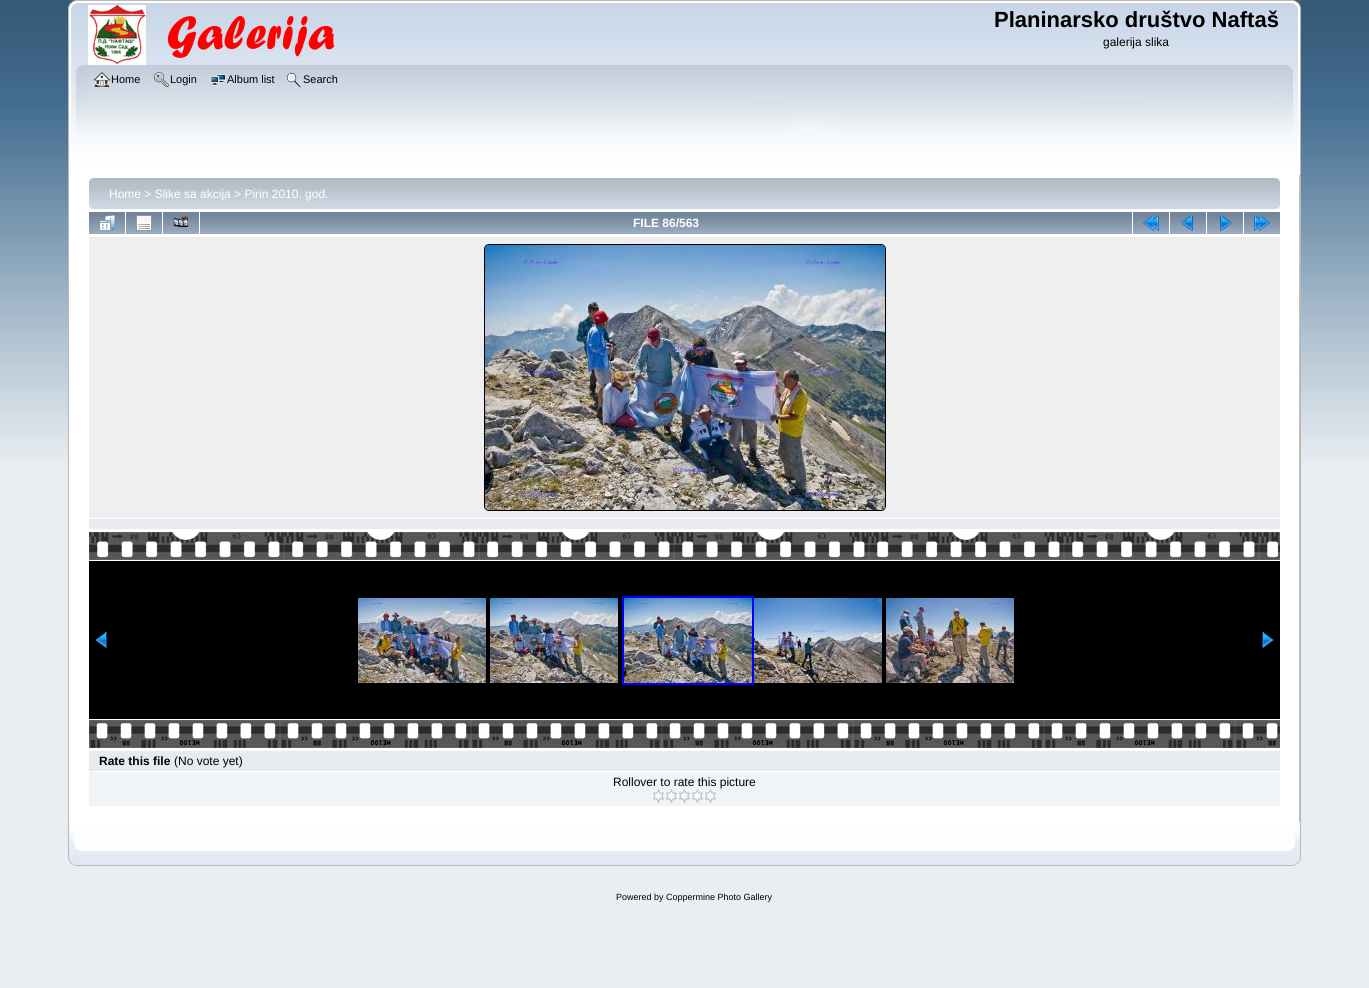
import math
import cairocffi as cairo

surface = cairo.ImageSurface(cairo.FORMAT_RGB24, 1369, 988)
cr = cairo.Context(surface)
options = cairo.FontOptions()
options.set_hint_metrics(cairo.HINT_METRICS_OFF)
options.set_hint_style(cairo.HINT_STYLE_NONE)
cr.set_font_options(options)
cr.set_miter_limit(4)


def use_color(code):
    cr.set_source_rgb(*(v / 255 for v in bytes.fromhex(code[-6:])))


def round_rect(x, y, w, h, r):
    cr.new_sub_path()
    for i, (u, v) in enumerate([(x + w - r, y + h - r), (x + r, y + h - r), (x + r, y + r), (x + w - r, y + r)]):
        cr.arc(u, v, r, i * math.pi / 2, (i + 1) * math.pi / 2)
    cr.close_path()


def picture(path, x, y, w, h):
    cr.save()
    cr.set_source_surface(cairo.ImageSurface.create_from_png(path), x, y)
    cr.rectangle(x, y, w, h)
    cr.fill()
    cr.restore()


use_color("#e9eef2")
cr.paint()
picture("img1.png", 0, 0, 1369, 462)
picture("img2.png", 68, 0, 1225, 65)
picture("img3.png", 1293, 0, 8, 65)
picture("img4.png", 88, 5, 247, 60)
cr.select_font_face("Liberation Sans", cairo.FONT_SLANT_NORMAL, cairo.FONT_WEIGHT_BOLD)
cr.set_font_size(22)
use_color("#000000")
cr.move_to(994, 27)
cr.show_text("Planinarsko društvo Naftaš")
cr.select_font_face("Liberation Sans")
cr.set_font_size(12)
cr.move_to(1103, 46)
cr.show_text("galerija slika")
picture("img5.png", 68, 65, 1218, 110)
picture("img6.png", 1286, 65, 15, 110)
picture("img7.png", 94, 72, 16, 16)
cr.set_font_size(11)
cr.move_to(111, 83)
cr.show_text("Home")
picture("img8.png", 154, 72, 15, 15)
cr.move_to(170, 83)
cr.show_text("Login")
picture("img9.png", 210, 74, 16, 12)
cr.move_to(227, 83)
cr.show_text("Album list")
picture("img10.png", 286, 72, 16, 15)
cr.move_to(303, 83)
cr.show_text("Search")
use_color("#ffffff")
cr.rectangle(69, 175, 1230, 647)
cr.fill()
use_color("#b7b7b7")
cr.rectangle(68, 175, 1, 647)
cr.fill()
picture("img11.png", 1299, 175, 2, 647)
picture("img12.png", 89, 178, 1186, 31)
picture("img13.png", 1275, 178, 5, 31)
cr.set_font_size(12)
use_color("#ffffff")
cr.move_to(109, 198)
cr.show_text("Home > Slike sa akcija > Pirin 2010. god.")
picture("img14.png", 89, 212, 36, 22)
picture("img15.png", 99, 215, 16, 16)
picture("img14.png", 126, 212, 36, 22)
picture("img16.png", 136, 215, 16, 16)
picture("img14.png", 163, 212, 36, 22)
picture("img17.png", 173, 216, 16, 12)
picture("img18.png", 200, 212, 932, 22)
cr.select_font_face("Liberation Sans", cairo.FONT_SLANT_NORMAL, cairo.FONT_WEIGHT_BOLD)
cr.move_to(633, 227)
cr.show_text("FILE 86/563")
picture("img14.png", 1133, 212, 36, 22)
picture("img19.png", 1143, 215, 16, 16)
picture("img14.png", 1170, 212, 36, 22)
picture("img20.png", 1181, 215, 12, 16)
picture("img14.png", 1207, 212, 36, 22)
picture("img21.png", 1220, 215, 12, 16)
picture("img14.png", 1244, 212, 36, 22)
picture("img22.png", 1254, 215, 16, 16)
use_color("#efefef")
cr.rectangle(89, 237, 1191, 281)
cr.fill()
round_rect(484.5, 244.5, 401, 266, 4.5)
use_color("#000000")
cr.set_line_width(1)
cr.stroke()
picture("img23.png", 485, 245, 400, 265)
use_color("#e7eaef")
cr.rectangle(89, 519, 1191, 10)
cr.fill()
picture("img24.png", 89, 532, 1191, 28)
use_color("#000000")
cr.rectangle(89, 561, 1191, 158)
cr.fill()
picture("img25.png", 95, 632, 12, 16)
picture("img26.png", 358, 598, 128, 85)
picture("img27.png", 490, 598, 128, 85)
cr.rectangle(623, 597, 130, 87)
use_color("#0000ff")
cr.set_line_width(2)
cr.stroke()
picture("img28.png", 624, 598, 128, 85)
picture("img29.png", 754, 598, 128, 85)
picture("img30.png", 886, 598, 128, 85)
picture("img31.png", 1262, 632, 12, 16)
picture("img32.png", 89, 720, 1191, 28)
use_color("#e7eaef")
cr.rectangle(89, 751, 1191, 20)
cr.fill()
use_color("#000000")
cr.move_to(99, 765)
cr.show_text("Rate this file")
cr.select_font_face("Liberation Sans")
cr.move_to(174, 765)
cr.show_text("(No vote yet)")
use_color("#f0f4f7")
cr.rectangle(89, 772, 1191, 34)
cr.fill()
use_color("#000000")
cr.move_to(613, 786)
cr.show_text("Rollover to rate this picture")
picture("img33.png", 652, 789, 13, 14)
picture("img33.png", 665, 789, 13, 14)
picture("img33.png", 678, 789, 13, 14)
picture("img33.png", 691, 789, 13, 14)
picture("img33.png", 704, 789, 13, 14)
picture("img34.png", 68, 822, 1220, 44)
picture("img35.png", 1288, 822, 13, 44)
cr.set_font_size(9)
cr.move_to(616, 900)
cr.show_text("Powered by Coppermine Photo Gallery")
surface.write_to_png("result.png")
